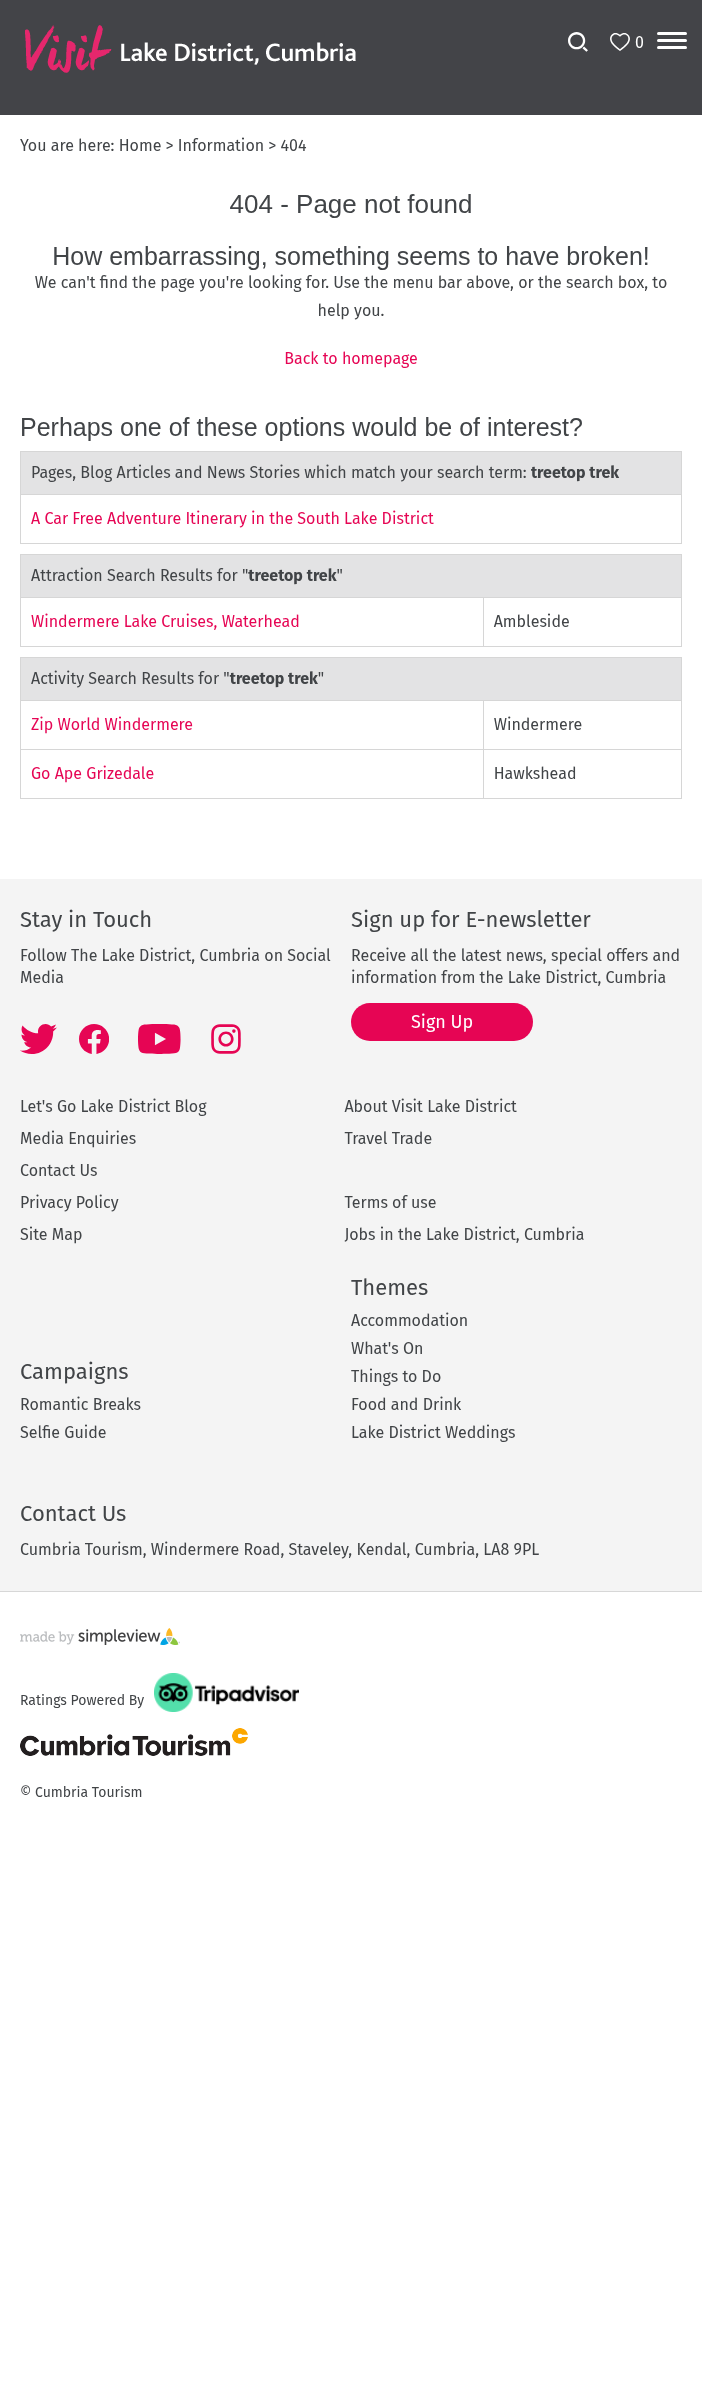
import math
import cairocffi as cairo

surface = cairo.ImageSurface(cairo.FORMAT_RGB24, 702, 2396)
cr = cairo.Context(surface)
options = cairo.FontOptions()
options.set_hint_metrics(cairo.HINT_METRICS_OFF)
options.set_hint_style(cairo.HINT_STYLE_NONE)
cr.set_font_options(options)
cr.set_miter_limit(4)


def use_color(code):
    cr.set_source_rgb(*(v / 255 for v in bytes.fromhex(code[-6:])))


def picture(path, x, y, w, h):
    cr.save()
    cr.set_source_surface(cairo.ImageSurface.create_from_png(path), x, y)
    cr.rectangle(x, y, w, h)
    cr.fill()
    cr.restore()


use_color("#ffffff")
cr.paint()
picture("img1.png", 0, 0, 702, 1797)
surface.write_to_png("result.png")
